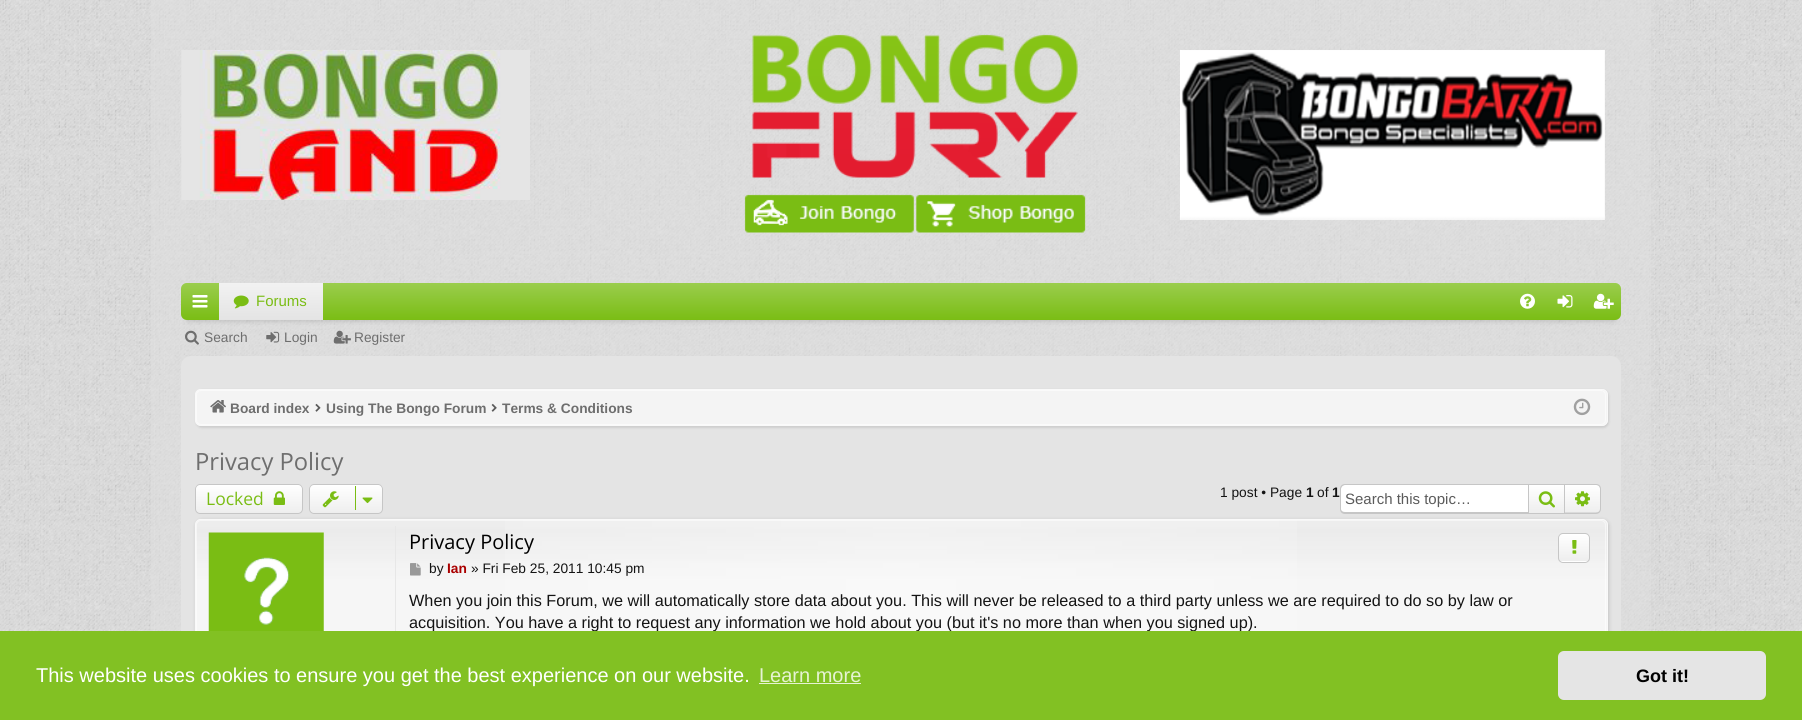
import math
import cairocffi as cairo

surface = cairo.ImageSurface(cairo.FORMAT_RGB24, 1802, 720)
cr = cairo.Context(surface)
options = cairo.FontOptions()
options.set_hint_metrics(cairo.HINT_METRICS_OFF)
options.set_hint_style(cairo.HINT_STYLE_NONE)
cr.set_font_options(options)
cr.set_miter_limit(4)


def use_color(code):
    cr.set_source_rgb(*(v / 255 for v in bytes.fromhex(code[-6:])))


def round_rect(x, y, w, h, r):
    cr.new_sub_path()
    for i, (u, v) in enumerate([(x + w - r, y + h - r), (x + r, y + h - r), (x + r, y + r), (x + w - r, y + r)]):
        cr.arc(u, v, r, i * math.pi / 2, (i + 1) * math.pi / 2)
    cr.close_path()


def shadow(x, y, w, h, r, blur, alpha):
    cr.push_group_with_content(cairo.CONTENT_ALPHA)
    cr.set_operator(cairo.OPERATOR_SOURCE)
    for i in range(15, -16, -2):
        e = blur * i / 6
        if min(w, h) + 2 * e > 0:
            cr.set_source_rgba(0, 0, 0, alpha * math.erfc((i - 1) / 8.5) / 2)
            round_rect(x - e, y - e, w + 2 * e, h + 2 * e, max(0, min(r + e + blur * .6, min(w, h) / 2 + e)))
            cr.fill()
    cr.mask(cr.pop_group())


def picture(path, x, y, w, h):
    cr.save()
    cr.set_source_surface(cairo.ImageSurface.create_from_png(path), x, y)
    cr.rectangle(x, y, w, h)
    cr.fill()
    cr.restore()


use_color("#e0e0e0")
cr.paint()
picture("img1.png", 0, 0, 1802, 631)
use_color("#e0e0e0")
cr.rectangle(151, 0, 1500, 631)
cr.fill()
picture("img2.png", 0, 0, 1802, 631)
picture("img3.png", 181, 50, 349, 150)
picture("img4.png", 752, 34, 326, 144)
picture("img5.png", 744, 194, 170, 39)
picture("img6.png", 916, 194, 170, 39)
picture("img7.png", 1180, 50, 425, 170)
use_color("#000000")
shadow(188, 295, 1427, 25, 0, 3, 0.2)
use_color("#7abd14")
round_rect(181, 283, 1440, 37, 6)
cr.fill()
gradient = cairo.LinearGradient(901, 282, 901, 320)
gradient.add_color_stop_rgba(0, 1, 1, 1, 0.25)
gradient.add_color_stop_rgba(1, 1, 1, 1, 0)
cr.set_source(gradient)
round_rect(181, 283, 1440, 37, 6)
cr.fill()
picture("img8.png", 192, 295, 16, 13)
gradient = cairo.LinearGradient(271, 283, 271, 320)
gradient.add_color_stop_rgba(0, 0.949, 0.949, 0.949, 1)
gradient.add_color_stop_rgba(1, 0.894, 0.894, 0.894, 1)
cr.set_source(gradient)
cr.rectangle(219, 283, 104, 37)
cr.fill()
picture("img9.png", 233, 295, 16, 14)
cr.select_font_face("Liberation Sans")
cr.set_font_size(15)
use_color("#7abd14")
cr.move_to(256, 306)
cr.show_text("Forums")
picture("img10.png", 1520, 293, 15, 16)
picture("img11.png", 1557, 295, 16, 13)
picture("img12.png", 1593, 293, 21, 16)
picture("img13.png", 185, 330, 14, 15)
cr.set_font_size(13.75)
use_color("#6e6e6e")
cr.move_to(204, 342)
cr.show_text("Search")
picture("img14.png", 266, 331, 14, 12)
cr.move_to(284, 342)
cr.show_text("Login")
picture("img15.png", 333, 330, 18, 14)
cr.move_to(354, 342)
cr.show_text("Register")
use_color("#e4e4e4")
round_rect(181, 356, 1440, 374, 10)
cr.fill()
use_color("#000000")
shadow(196, 390, 1413, 38, 6, 1, 0.1)
use_color("#f4f4f4")
round_rect(195, 389, 1413, 37, 6)
cr.fill()
round_rect(196.5, 390.5, 1409, 34, 4.5)
use_color("#fafafa")
cr.set_line_width(1)
cr.stroke()
round_rect(195.5, 389.5, 1412, 36, 5.5)
use_color("#f9f9f9")
cr.stroke()
picture("img16.png", 210, 400, 16, 13)
cr.select_font_face("Liberation Sans", cairo.FONT_SLANT_NORMAL, cairo.FONT_WEIGHT_BOLD)
use_color("#6e6e6e")
cr.move_to(230, 413)
cr.show_text("Board index")
picture("img17.png", 315, 403, 6, 9)
cr.move_to(326, 413)
cr.show_text("Using The Bongo Forum")
picture("img18.png", 491, 403, 6, 9)
cr.move_to(502, 413)
cr.show_text("Terms & Conditions")
picture("img19.png", 1573, 398, 18, 18)
cr.select_font_face("Open Sans")
cr.set_font_size(23.75)
cr.move_to(195, 470)
cr.show_text("Privacy Policy")
use_color("#eeeeee")
round_rect(195, 484, 108, 30, 5)
cr.fill()
cr.save()
round_rect(195, 484, 108, 30, 5)
cr.clip()
gradient = cairo.LinearGradient(249, 485, 249, 513)
gradient.add_color_stop_rgba(0, 1, 1, 1, 1)
gradient.add_color_stop_rgba(1, 1, 1, 1, 0)
cr.set_source(gradient)
cr.rectangle(195, 485, 108, 27)
cr.fill()
cr.restore()
round_rect(195.5, 484.5, 107, 29, 4.5)
use_color("#c6c6c6")
cr.stroke()
cr.set_font_size(17.5)
use_color("#7abd14")
cr.move_to(206, 505)
cr.show_text("Locked")
picture("img20.png", 273, 491, 12, 14)
use_color("#eeeeee")
round_rect(309, 484, 74, 30, 5)
cr.fill()
cr.save()
round_rect(309, 484, 74, 30, 5)
cr.clip()
gradient = cairo.LinearGradient(346, 485, 346, 513)
gradient.add_color_stop_rgba(0, 1, 1, 1, 1)
gradient.add_color_stop_rgba(1, 1, 1, 1, 0)
cr.set_source(gradient)
cr.rectangle(309, 485, 74, 27)
cr.fill()
cr.restore()
round_rect(309.5, 484.5, 73, 29, 4.5)
use_color("#c6c6c6")
cr.stroke()
picture("img21.png", 322, 491, 17, 17)
use_color("#7abd14")
cr.rectangle(355, 486, 1, 24)
cr.fill()
picture("img22.png", 362, 497, 11, 7)
cr.select_font_face("Liberation Sans")
cr.set_font_size(13.75)
use_color("#141414")
cr.move_to(1220, 497)
cr.show_text("1 post • Page")
cr.select_font_face("Liberation Sans", cairo.FONT_SLANT_NORMAL, cairo.FONT_WEIGHT_BOLD)
cr.move_to(1306, 497)
cr.show_text("1")
cr.select_font_face("Liberation Sans")
cr.move_to(1317, 497)
cr.show_text("of")
cr.select_font_face("Liberation Sans", cairo.FONT_SLANT_NORMAL, cairo.FONT_WEIGHT_BOLD)
cr.move_to(1332, 497)
cr.show_text("1")
use_color("#ffffff")
cr.new_path()
cr.move_to(1345, 485)
cr.line_to(1528, 485)
cr.line_to(1528, 513)
cr.line_to(1345, 513)
cr.curve_to(1343, 513, 1341, 511, 1341, 509)
cr.line_to(1341, 489)
cr.curve_to(1341, 487, 1343, 485, 1345, 485)
cr.close_path()
cr.fill()
use_color("#c6c6c6")
cr.set_fill_rule(cairo.FILL_RULE_EVEN_ODD)
cr.new_path()
cr.move_to(1345, 484)
cr.line_to(1528, 484)
cr.line_to(1528, 514)
cr.line_to(1345, 514)
cr.curve_to(1342, 514, 1340, 512, 1340, 509)
cr.line_to(1340, 489)
cr.curve_to(1340, 486, 1342, 484, 1345, 484)
cr.close_path()
cr.move_to(1345, 485)
cr.line_to(1528, 485)
cr.line_to(1528, 512)
cr.line_to(1345, 512)
cr.curve_to(1343, 512, 1341, 511, 1341, 509)
cr.line_to(1341, 489)
cr.curve_to(1341, 487, 1343, 485, 1345, 485)
cr.close_path()
cr.fill()
cr.select_font_face("Liberation Sans")
cr.set_font_size(15)
use_color("#5b5b5b")
cr.move_to(1345, 504)
cr.show_text("Search this topic…")
gradient = cairo.LinearGradient(1546, 485, 1546, 513)
gradient.add_color_stop_rgba(0, 1, 1, 1, 1)
gradient.add_color_stop_rgba(1, 0.933, 0.933, 0.933, 1)
cr.set_source(gradient)
cr.rectangle(1529, 485, 35, 28)
cr.fill()
cr.rectangle(1528.5, 484.5, 36, 29)
use_color("#c6c6c6")
cr.stroke()
picture("img23.png", 1538, 491, 17, 17)
use_color("#eeeeee")
cr.new_path()
cr.move_to(1565, 485)
cr.line_to(1596, 485)
cr.curve_to(1598, 485, 1600, 487, 1600, 489)
cr.line_to(1600, 509)
cr.curve_to(1600, 511, 1598, 513, 1596, 513)
cr.line_to(1565, 513)
cr.close_path()
cr.fill()
gradient = cairo.LinearGradient(1583, 485, 1583, 513)
gradient.add_color_stop_rgba(0, 1, 1, 1, 1)
gradient.add_color_stop_rgba(1, 1, 1, 1, 0)
cr.set_source(gradient)
cr.new_path()
cr.move_to(1565, 485)
cr.line_to(1596, 485)
cr.curve_to(1598, 485, 1600, 487, 1600, 489)
cr.line_to(1600, 509)
cr.curve_to(1600, 511, 1598, 513, 1596, 513)
cr.line_to(1565, 513)
cr.close_path()
cr.fill()
use_color("#c6c6c6")
cr.new_path()
cr.move_to(1565, 484)
cr.line_to(1596, 484)
cr.curve_to(1599, 484, 1601, 486, 1601, 489)
cr.line_to(1601, 509)
cr.curve_to(1601, 511.5, 1599, 514, 1596, 514)
cr.line_to(1565, 514)
cr.close_path()
cr.move_to(1565, 485)
cr.line_to(1596, 485)
cr.curve_to(1598.5, 485, 1600, 486.5, 1600, 489)
cr.line_to(1600, 509)
cr.curve_to(1600, 511, 1598.5, 512.5, 1596, 512.5)
cr.line_to(1565, 512.5)
cr.close_path()
cr.fill()
picture("img24.png", 1575, 491, 15, 16)
use_color("#000000")
shadow(196, 520, 1413, 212, 6, 2, 0.15)
use_color("#f6f6f6")
round_rect(195, 519, 1413, 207, 6)
cr.fill()
cr.save()
cr.set_fill_rule(cairo.FILL_RULE_WINDING)
round_rect(195, 519, 1413, 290, 6)
cr.clip()
gradient = cairo.LinearGradient(901, 520, 901, 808)
gradient.add_color_stop_rgba(0, 0.8, 0.8, 0.8, 0.2)
gradient.add_color_stop_rgba(0.04, 0.8, 0.8, 0.8, 0.25)
gradient.add_color_stop_rgba(0.22, 0.8, 0.8, 0.8, 0)
cr.set_source(gradient)
cr.rectangle(195, 520, 1413, 59)
cr.fill()
cr.restore()
gradient = cairo.LinearGradient(196, 664, 1606, 664)
gradient.add_color_stop_rgba(0, 1, 1, 1, 0)
gradient.add_color_stop_rgba(0.5, 1, 1, 1, 0.3)
gradient.add_color_stop_rgba(1, 1, 1, 1, 0)
cr.set_source(gradient)
cr.rectangle(505, 520, 792, 111)
cr.fill()
round_rect(196.5, 520.5, 1409, 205, 4.5)
cr.set_source_rgba(1, 1, 1, 0.5)
cr.stroke()
round_rect(195.5, 519.5, 1412, 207, 5.5)
use_color("#f9f9f9")
cr.stroke()
use_color("#e7e7e7")
cr.rectangle(395, 526, 1, 105)
cr.fill()
picture("img25.png", 208, 532, 116, 99)
cr.select_font_face("Open Sans")
cr.set_font_size(20)
use_color("#000000")
cr.move_to(409, 549)
cr.show_text("Privacy Policy")
cr.save()
cr.set_fill_rule(cairo.FILL_RULE_WINDING)
round_rect(1558, 533, 32, 30, 5)
cr.clip()
gradient = cairo.LinearGradient(1574, 534, 1574, 561)
gradient.add_color_stop_rgba(0, 1, 1, 1, 1)
gradient.add_color_stop_rgba(1, 0.933, 0.933, 0.933, 1)
cr.set_source(gradient)
cr.rectangle(1558, 534, 32, 27)
cr.fill()
gradient = cairo.LinearGradient(1574, 561, 1574, 589)
gradient.add_color_stop_rgba(0, 1, 1, 1, 1)
gradient.add_color_stop_rgba(1, 0.933, 0.933, 0.933, 1)
cr.set_source(gradient)
cr.rectangle(1558, 561, 32, 2)
cr.fill()
cr.restore()
round_rect(1558.5, 533.5, 31, 29, 4.5)
use_color("#c6c6c6")
cr.stroke()
picture("img26.png", 1572, 540, 5, 14)
picture("img27.png", 410, 563, 11, 13)
cr.select_font_face("Liberation Sans")
cr.set_font_size(13.75)
use_color("#141414")
cr.move_to(429, 573)
cr.show_text("by")
cr.select_font_face("Liberation Sans", cairo.FONT_SLANT_NORMAL, cairo.FONT_WEIGHT_BOLD)
use_color("#aa0000")
cr.move_to(447, 573)
cr.show_text("Ian")
cr.select_font_face("Liberation Sans")
use_color("#141414")
cr.move_to(471, 573)
cr.show_text("» Fri Feb 25, 2011 10:45 pm")
cr.set_font_size(16.25)
cr.move_to(409, 606)
cr.show_text("When you join this Forum, we will automatically store data about you. This will never be released to a third party unless we are required to do so by law or")
cr.move_to(409, 628)
cr.show_text("acquisition. You have a right to request any information we hold about you (but it's no more than when you signed up).")
use_color("#82c123")
cr.rectangle(0, 631, 1802, 89)
cr.fill()
cr.set_font_size(20)
use_color("#ffffff")
cr.move_to(36, 682)
cr.show_text("This website uses cookies to ensure you get the best experience on our website.")
use_color("#e6f3d3")
cr.move_to(759, 682)
cr.show_text("Learn more")
cr.rectangle(759, 683, 102, 1)
cr.fill()
use_color("#e5e5e5")
round_rect(1558, 651, 208, 49, 6)
cr.fill()
cr.select_font_face("Liberation Sans", cairo.FONT_SLANT_NORMAL, cairo.FONT_WEIGHT_BOLD)
cr.set_font_size(18)
use_color("#000000")
cr.move_to(1636, 682)
cr.show_text("Got it!")
surface.write_to_png("result.png")
